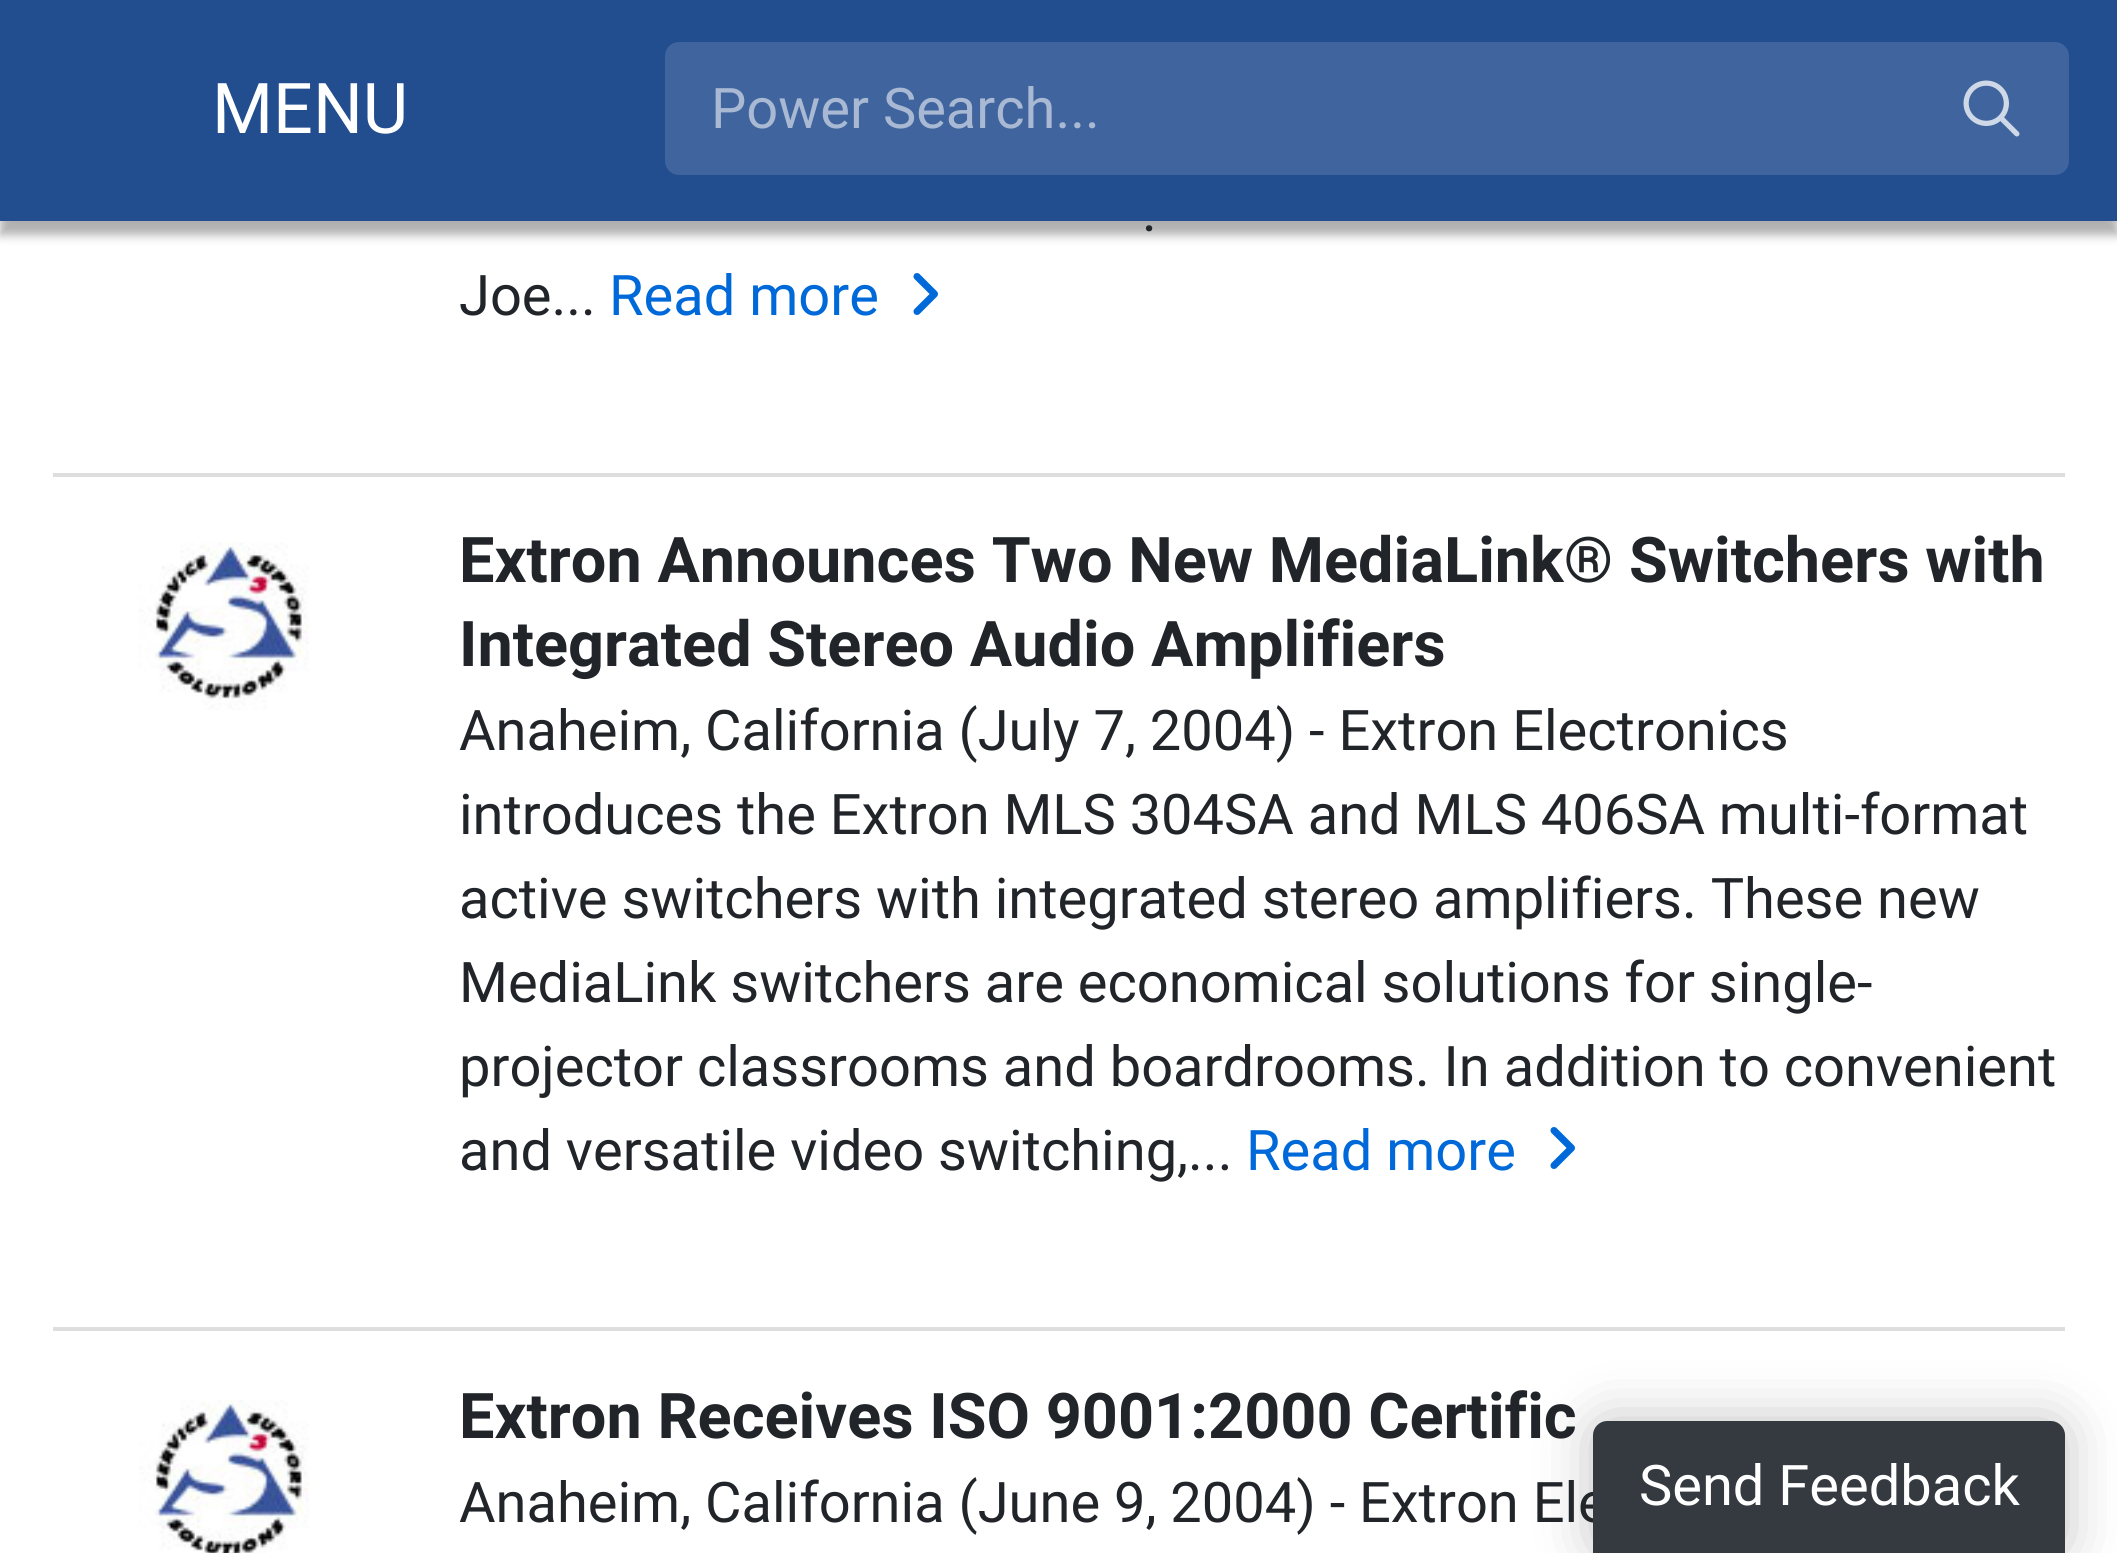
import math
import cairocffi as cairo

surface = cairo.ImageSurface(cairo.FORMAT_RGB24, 2117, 1553)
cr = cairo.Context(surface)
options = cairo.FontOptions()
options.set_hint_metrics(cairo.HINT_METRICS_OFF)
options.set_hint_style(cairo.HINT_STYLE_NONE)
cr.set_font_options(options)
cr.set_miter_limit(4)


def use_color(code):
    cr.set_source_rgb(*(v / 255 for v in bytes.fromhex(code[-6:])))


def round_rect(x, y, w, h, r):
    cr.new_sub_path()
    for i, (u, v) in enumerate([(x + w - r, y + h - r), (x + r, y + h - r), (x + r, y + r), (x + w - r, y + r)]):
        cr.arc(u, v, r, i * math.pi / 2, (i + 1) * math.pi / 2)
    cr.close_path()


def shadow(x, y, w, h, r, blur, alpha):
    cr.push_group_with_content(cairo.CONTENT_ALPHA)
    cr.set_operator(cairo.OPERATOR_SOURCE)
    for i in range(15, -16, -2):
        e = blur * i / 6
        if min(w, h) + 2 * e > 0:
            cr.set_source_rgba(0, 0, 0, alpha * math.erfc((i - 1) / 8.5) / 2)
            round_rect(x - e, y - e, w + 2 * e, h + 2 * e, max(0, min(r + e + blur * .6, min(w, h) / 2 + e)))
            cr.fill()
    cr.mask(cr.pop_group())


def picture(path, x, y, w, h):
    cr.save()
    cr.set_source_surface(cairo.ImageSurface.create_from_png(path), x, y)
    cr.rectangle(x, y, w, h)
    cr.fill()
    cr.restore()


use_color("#ffffff")
cr.paint()
use_color("#000000")
shadow(0, 11, 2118, 224, 0, 5, 0.31)
use_color("#224d8f")
cr.rectangle(0, 0, 2117, 221)
cr.fill()
cr.select_font_face("Roboto")
cr.set_font_size(70)
use_color("#ffffff")
cr.move_to(212, 133)
cr.show_text("MENU")
use_color("#3f649e")
round_rect(665, 42, 1404, 133, 14)
cr.fill()
cr.set_font_size(56)
use_color("#a9b9d3")
cr.move_to(711, 128)
cr.show_text("Power Search...")
picture("img1.png", 1963, 80, 57, 57)
use_color("#212529")
cr.move_to(1142, 231)
cr.show_text(".")
cr.move_to(459, 315)
cr.show_text("Joe...")
use_color("#0069d9")
cr.move_to(609, 315)
cr.show_text("Read more")
picture("img2.png", 913, 273, 25, 42)
use_color("#dedede")
cr.rectangle(53, 473, 2012, 4)
cr.fill()
picture("img3.png", 138, 542, 171, 168)
cr.select_font_face("Roboto", cairo.FONT_SLANT_NORMAL, cairo.FONT_WEIGHT_BOLD)
cr.set_font_size(63)
use_color("#212529")
cr.move_to(459, 582)
cr.show_text("Extron Announces Two New MediaLink® Switchers with")
cr.move_to(459, 666)
cr.show_text("Integrated Stereo Audio Amplifiers")
cr.select_font_face("Roboto")
cr.set_font_size(56)
cr.move_to(459, 750)
cr.show_text("Anaheim, California (July 7, 2004) - Extron Electronics")
cr.move_to(459, 834)
cr.show_text("introduces the Extron MLS 304SA and MLS 406SA multi-format")
cr.move_to(459, 918)
cr.show_text("active switchers with integrated stereo amplifiers. These new")
cr.move_to(459, 1002)
cr.show_text("MediaLink switchers are economical solutions for single-")
cr.move_to(459, 1086)
cr.show_text("projector classrooms and boardrooms. In addition to convenient")
cr.move_to(459, 1170)
cr.show_text("and versatile video switching,...")
use_color("#0069d9")
cr.move_to(1246, 1170)
cr.show_text("Read more")
picture("img2.png", 1550, 1127, 25, 42)
use_color("#dedede")
cr.rectangle(53, 1327, 2012, 4)
cr.fill()
picture("img4.png", 139, 1400, 170, 153)
cr.select_font_face("Roboto", cairo.FONT_SLANT_NORMAL, cairo.FONT_WEIGHT_BOLD)
cr.set_font_size(63)
use_color("#212529")
cr.move_to(459, 1438)
cr.show_text("Extron Receives ISO 9001:2000 Certific")
cr.select_font_face("Roboto")
cr.set_font_size(56)
cr.move_to(459, 1522)
cr.show_text("Anaheim, California (June 9, 2004) - Extron Ele")
use_color("#323232")
shadow(1593, 1421, 472, 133, 14, 28, 0.3)
use_color("#343a40")
cr.new_path()
cr.move_to(1607, 1421)
cr.line_to(2051, 1421)
cr.curve_to(2058.5, 1421, 2065, 1427.5, 2065, 1435)
cr.line_to(2065, 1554)
cr.line_to(1593, 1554)
cr.line_to(1593, 1435)
cr.curve_to(1593, 1427.5, 1599.5, 1421, 1607, 1421)
cr.close_path()
cr.fill()
use_color("#ffffff")
cr.move_to(1639, 1505)
cr.show_text("Send Feedback")
surface.write_to_png("result.png")
